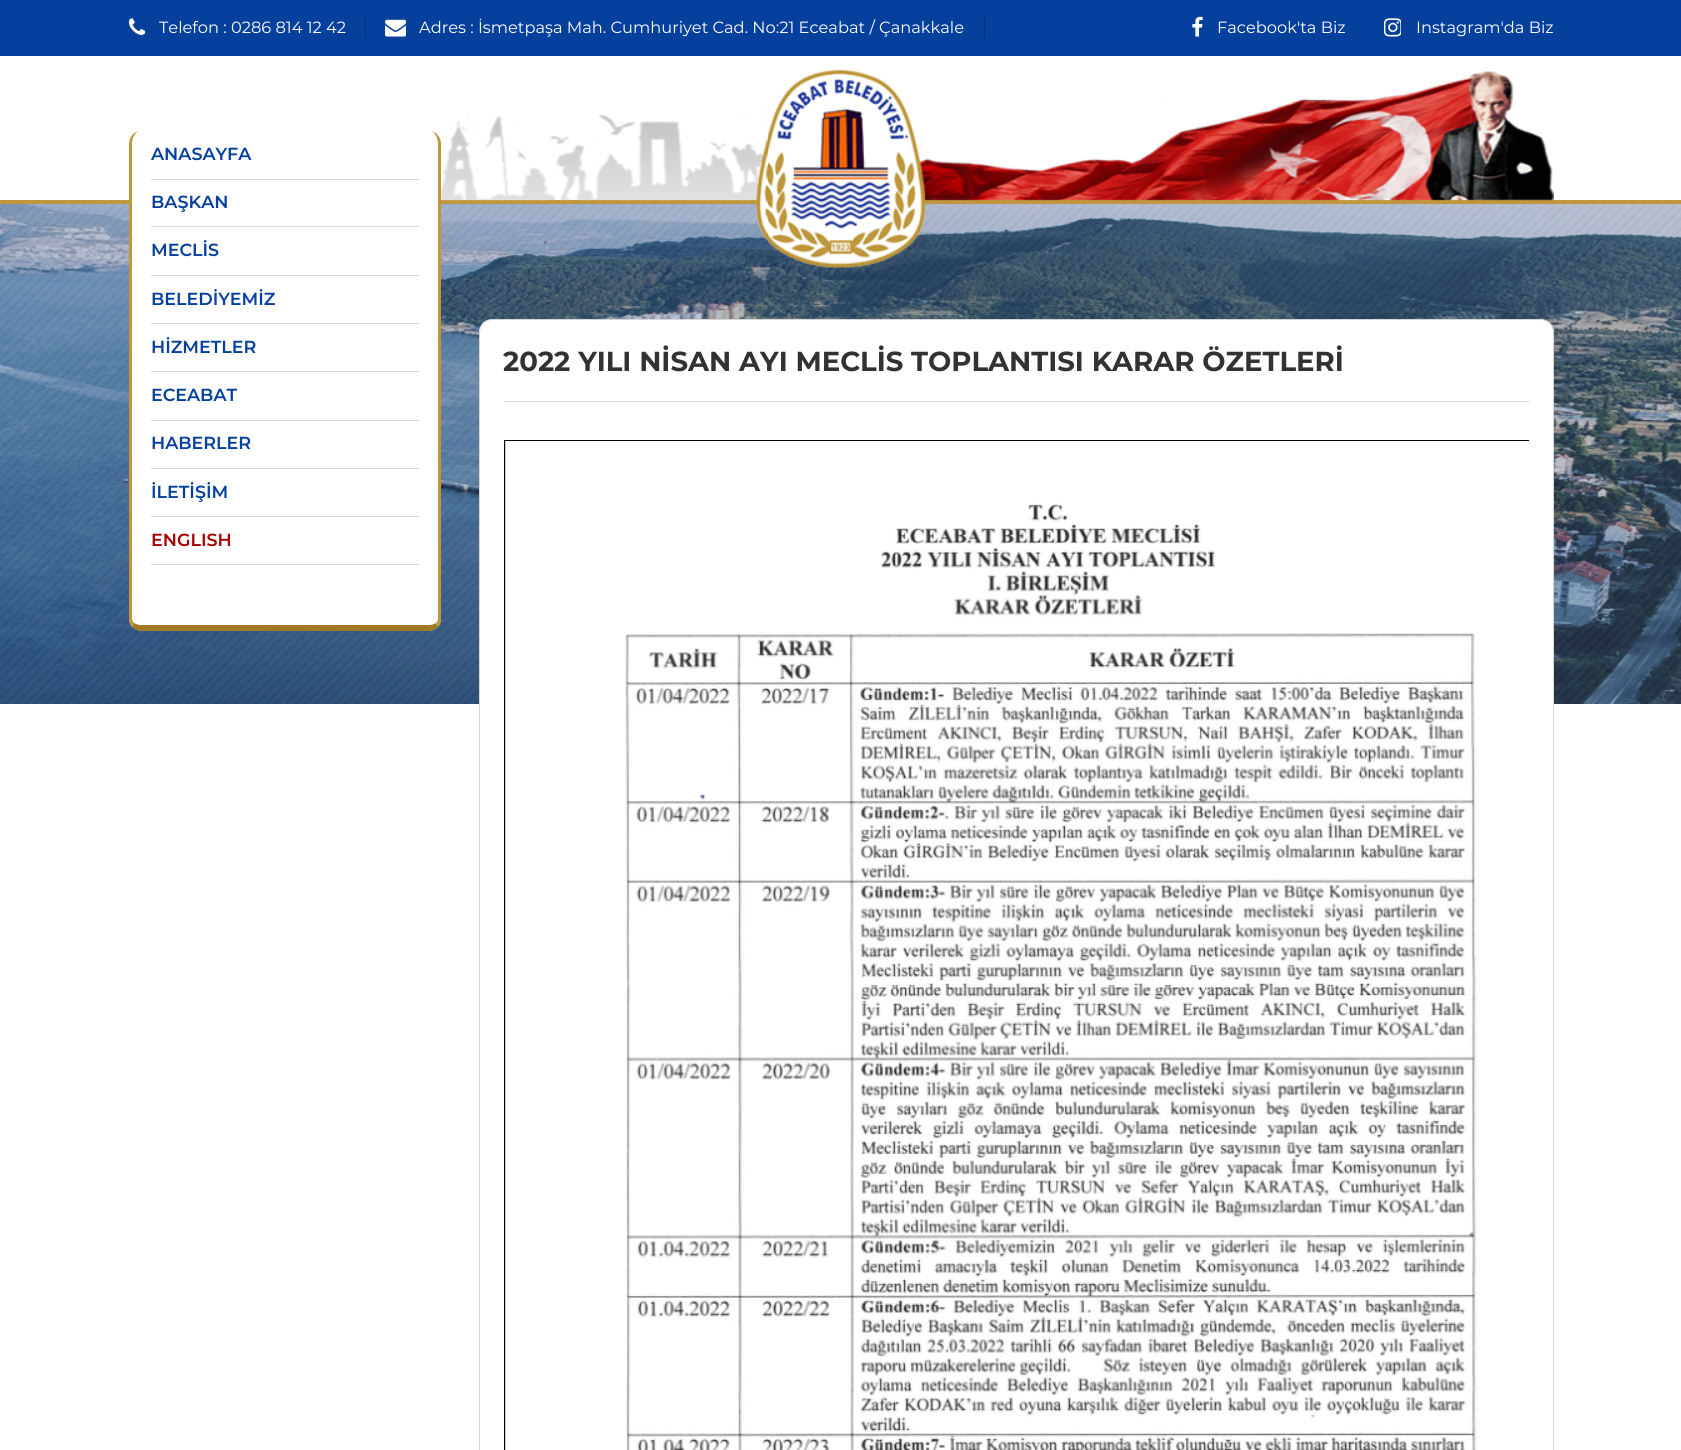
import math
import cairocffi as cairo

surface = cairo.ImageSurface(cairo.FORMAT_RGB24, 1681, 1450)
cr = cairo.Context(surface)
options = cairo.FontOptions()
options.set_hint_metrics(cairo.HINT_METRICS_OFF)
options.set_hint_style(cairo.HINT_STYLE_NONE)
cr.set_font_options(options)
cr.set_miter_limit(4)


def use_color(code):
    cr.set_source_rgb(*(v / 255 for v in bytes.fromhex(code[-6:])))


def round_rect(x, y, w, h, r):
    cr.new_sub_path()
    for i, (u, v) in enumerate([(x + w - r, y + h - r), (x + r, y + h - r), (x + r, y + r), (x + w - r, y + r)]):
        cr.arc(u, v, r, i * math.pi / 2, (i + 1) * math.pi / 2)
    cr.close_path()


def picture(path, x, y, w, h):
    cr.save()
    cr.set_source_surface(cairo.ImageSurface.create_from_png(path), x, y)
    cr.rectangle(x, y, w, h)
    cr.fill()
    cr.restore()


use_color("#ffffff")
cr.paint()
use_color("#05409c")
cr.rectangle(0, 0, 1681, 56)
cr.fill()
use_color("#00327f")
cr.rectangle(365, 15, 1, 23)
cr.fill()
picture("img1.png", 129, 18, 16, 17)
cr.select_font_face("Montserrat")
cr.set_font_size(16.25)
use_color("#ffffff")
cr.move_to(159, 33)
cr.show_text("Telefon : 0286 814 12 42")
use_color("#00327f")
cr.rectangle(984, 15, 1, 23)
cr.fill()
picture("img2.png", 385, 19, 21, 18)
use_color("#ffffff")
cr.move_to(419, 33)
cr.show_text("Adres : İsmetpaşa Mah. Cumhuriyet Cad. No:21 Eceabat / Çanakkale")
picture("img3.png", 1192, 16, 11, 21)
cr.move_to(1217, 33)
cr.show_text("Facebook'ta Biz")
picture("img4.png", 1384, 18, 17, 19)
cr.move_to(1416, 33)
cr.show_text("Instagram'da Biz")
picture("img8.png", 0, 204, 1681, 500)
use_color("#c0973d")
cr.rectangle(0, 200, 1681, 4)
cr.fill()
use_color("#ffffff")
round_rect(129, 131, 312, 500, 13)
cr.fill()
use_color("#c0973d")
cr.new_path()
cr.move_to(436, 623)
cr.curve_to(437, 622, 438, 620, 438, 619)
cr.line_to(438, 144)
cr.curve_to(438, 138, 435, 132, 431, 131)
cr.curve_to(437, 132, 441, 138, 441, 144)
cr.line_to(441, 619)
cr.curve_to(441, 622, 440, 625, 438, 627)
cr.close_path()
cr.fill()
use_color("#a17825")
cr.new_path()
cr.move_to(438, 627)
cr.curve_to(436, 629, 433, 631, 429, 631)
cr.line_to(141, 631)
cr.curve_to(137, 631, 134, 629, 132, 627)
cr.line_to(134, 623)
cr.curve_to(136, 624, 138, 625, 141, 625)
cr.line_to(429, 625)
cr.curve_to(432, 625, 434, 624, 436, 623)
cr.close_path()
cr.fill()
use_color("#c0973d")
cr.new_path()
cr.move_to(139, 131)
cr.curve_to(135, 132, 132, 138, 132, 144)
cr.line_to(132, 619)
cr.curve_to(132, 620, 133, 622, 134, 623)
cr.line_to(132, 627)
cr.curve_to(130, 625, 129, 622, 129, 619)
cr.line_to(129, 144)
cr.curve_to(129, 138, 133, 132, 139, 131)
cr.close_path()
cr.fill()
use_color("#d9d9d9")
cr.rectangle(151, 179, 268, 1)
cr.fill()
cr.select_font_face("Montserrat SemiBold")
cr.set_font_size(17.5)
use_color("#05409c")
cr.move_to(151, 160)
cr.show_text("ANASAYFA")
use_color("#d9d9d9")
cr.rectangle(151, 226, 268, 1)
cr.fill()
use_color("#05409c")
cr.move_to(151, 208)
cr.show_text("BAŞKAN")
use_color("#d9d9d9")
cr.rectangle(151, 275, 268, 1)
cr.fill()
use_color("#05409c")
cr.move_to(151, 256)
cr.show_text("MECLİS")
use_color("#d9d9d9")
cr.rectangle(151, 323, 268, 1)
cr.fill()
use_color("#05409c")
cr.move_to(151, 305)
cr.show_text("BELEDİYEMİZ")
use_color("#d9d9d9")
cr.rectangle(151, 371, 268, 1)
cr.fill()
use_color("#05409c")
cr.move_to(151, 353)
cr.show_text("HİZMETLER")
use_color("#d9d9d9")
cr.rectangle(151, 420, 268, 1)
cr.fill()
use_color("#05409c")
cr.move_to(151, 401)
cr.show_text("ECEABAT")
use_color("#d9d9d9")
cr.rectangle(151, 468, 268, 1)
cr.fill()
use_color("#05409c")
cr.move_to(151, 449)
cr.show_text("HABERLER")
use_color("#d9d9d9")
cr.rectangle(151, 516, 268, 1)
cr.fill()
use_color("#05409c")
cr.move_to(151, 498)
cr.show_text("İLETİŞİM")
use_color("#d9d9d9")
cr.rectangle(151, 564, 268, 1)
cr.fill()
use_color("#a60001")
cr.move_to(151, 546)
cr.show_text("ENGLISH")
picture("img5.png", 441, 71, 1113, 130)
picture("img6.png", 756, 69, 170, 199)
use_color("#ffffff")
round_rect(479.5, 319.5, 1074, 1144, 12.5)
cr.fill_preserve()
use_color("#d7d7d7")
cr.set_line_width(1)
cr.stroke()
cr.rectangle(504, 401, 1025, 1)
cr.fill()
cr.select_font_face("Montserrat", cairo.FONT_SLANT_NORMAL, cairo.FONT_WEIGHT_BOLD)
cr.set_font_size(27.5)
use_color("#313234")
cr.move_to(503, 371)
cr.show_text("2022 YILI NİSAN AYI MECLİS TOPLANTISI KARAR ÖZETLERİ")
use_color("#d3d3d3")
cr.rectangle(505, 441, 1, 1009)
cr.fill()
cr.save()
cr.rectangle(504, 440, 1025, 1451)
cr.clip()
cr.rectangle(504.5, 440.5, 1026, 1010)
use_color("#000000")
cr.stroke()
cr.restore()
picture("img7.png", 625, 503, 854, 947)
surface.write_to_png("result.png")
